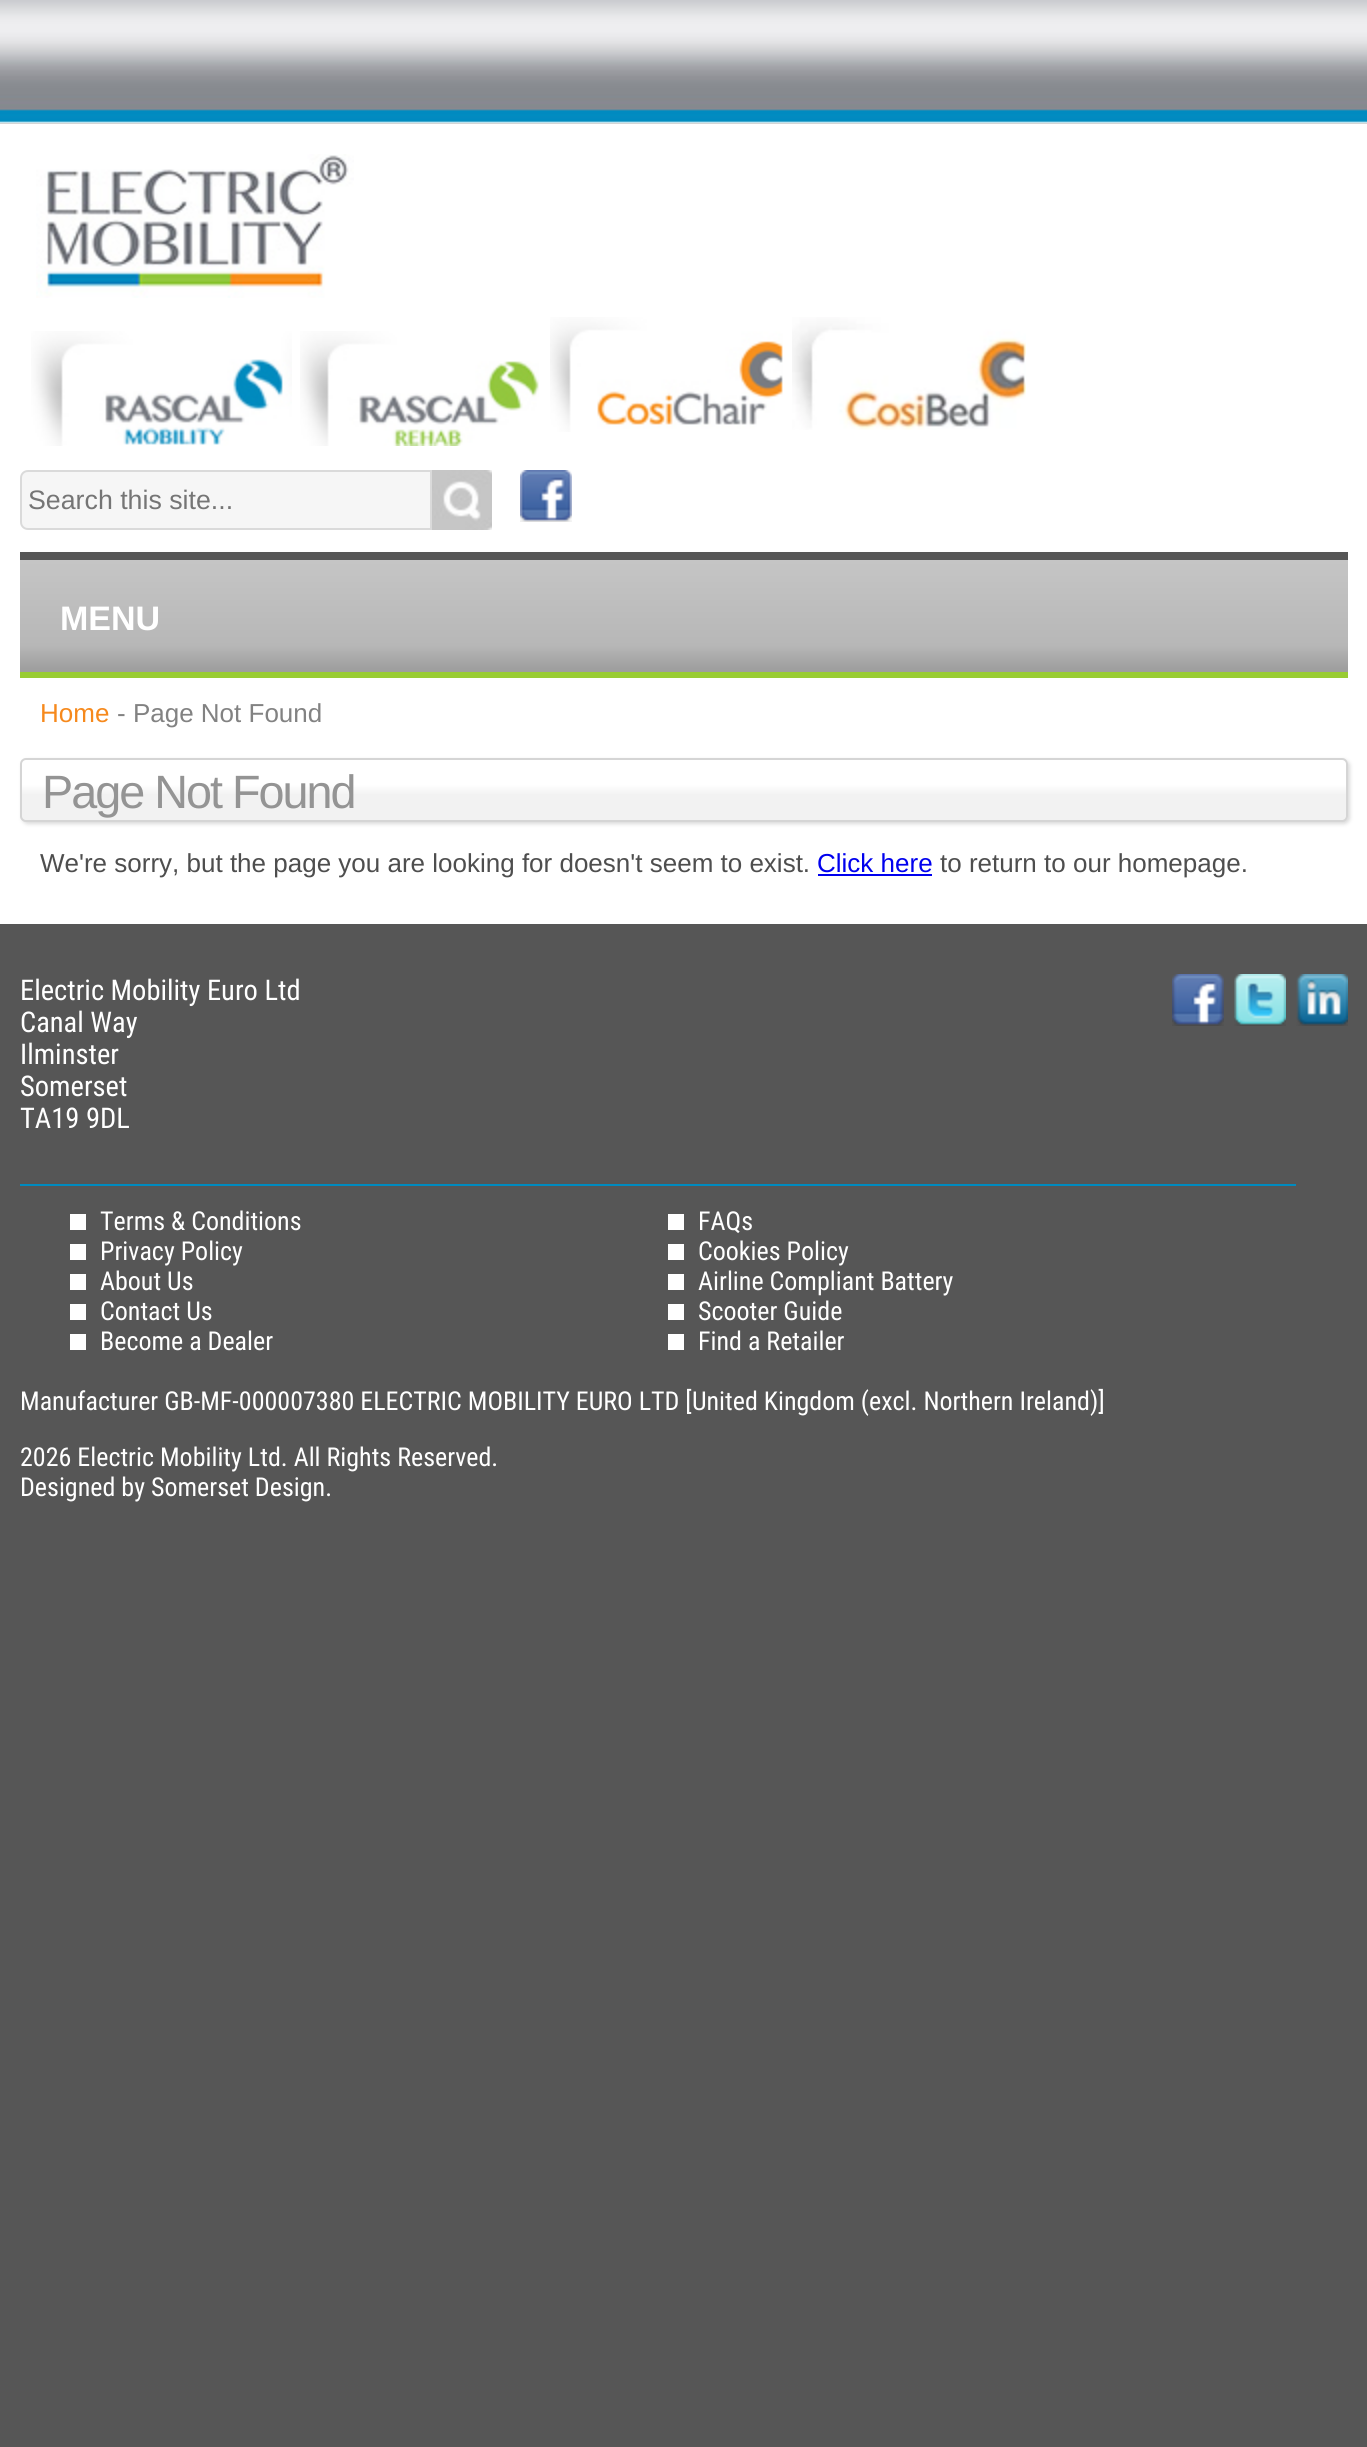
import math
import cairocffi as cairo

surface = cairo.ImageSurface(cairo.FORMAT_RGB24, 1367, 2447)
cr = cairo.Context(surface)
options = cairo.FontOptions()
options.set_hint_metrics(cairo.HINT_METRICS_OFF)
options.set_hint_style(cairo.HINT_STYLE_NONE)
cr.set_font_options(options)
cr.set_miter_limit(4)


def use_color(code):
    cr.set_source_rgb(*(v / 255 for v in bytes.fromhex(code[-6:])))


def spaced_text(x, y, s, letter, word):
    cr.move_to(x, y)
    for ch in s:
        cr.show_text(ch)
        cr.rel_move_to(letter + word * (ch == ' '), 0)


def round_rect(x, y, w, h, r):
    cr.new_sub_path()
    for i, (u, v) in enumerate([(x + w - r, y + h - r), (x + r, y + h - r), (x + r, y + r), (x + w - r, y + r)]):
        cr.arc(u, v, r, i * math.pi / 2, (i + 1) * math.pi / 2)
    cr.close_path()


def shadow(x, y, w, h, r, blur, alpha):
    cr.push_group_with_content(cairo.CONTENT_ALPHA)
    cr.set_operator(cairo.OPERATOR_SOURCE)
    for i in range(15, -16, -2):
        e = blur * i / 6
        if min(w, h) + 2 * e > 0:
            cr.set_source_rgba(0, 0, 0, alpha * math.erfc((i - 1) / 8.5) / 2)
            round_rect(x - e, y - e, w + 2 * e, h + 2 * e, max(0, min(r + e + blur * .6, min(w, h) / 2 + e)))
            cr.fill()
    cr.mask(cr.pop_group())


def picture(path, x, y, w, h):
    cr.save()
    cr.set_source_surface(cairo.ImageSurface.create_from_png(path), x, y)
    cr.rectangle(x, y, w, h)
    cr.fill()
    cr.restore()


use_color("#565656")
cr.paint()
picture("img1.png", 0, 0, 1367, 124)
use_color("#ffffff")
cr.rectangle(0, 124, 1367, 800)
cr.fill()
picture("img2.png", 36, 154, 318, 144)
picture("img3.png", 31, 331, 261, 115)
picture("img4.png", 300, 331, 239, 115)
picture("img5.png", 550, 317, 233, 115)
picture("img6.png", 792, 317, 234, 113)
use_color("#f6f6f6")
cr.new_path()
cr.move_to(28, 471)
cr.line_to(431, 471)
cr.line_to(431, 529)
cr.line_to(28, 529)
cr.curve_to(24, 529, 21, 526, 21, 522)
cr.line_to(21, 478)
cr.curve_to(21, 474, 24, 471, 28, 471)
cr.close_path()
cr.fill_preserve()
use_color("#dadada")
cr.stroke()
cr.select_font_face("Liberation Sans")
cr.set_font_size(26.75)
use_color("#757575")
cr.move_to(28, 509)
cr.show_text("Search this site...")
picture("img7.png", 432, 470, 60, 60)
picture("img8.png", 520, 470, 52, 52)
gradient = cairo.LinearGradient(684, 560, 684, 672)
gradient.add_color_stop_rgba(0, 0.773, 0.773, 0.773, 1)
gradient.add_color_stop_rgba(0.76, 0.718, 0.718, 0.718, 1)
gradient.add_color_stop_rgba(0.96, 0.627, 0.627, 0.627, 1)
gradient.add_color_stop_rgba(1, 0.62, 0.62, 0.62, 1)
cr.set_source(gradient)
cr.rectangle(20, 560, 1328, 112)
cr.fill()
use_color("#565656")
cr.rectangle(20, 552, 1328, 8)
cr.fill()
use_color("#99cc33")
cr.rectangle(20, 672, 1328, 6)
cr.fill()
cr.select_font_face("Liberation Sans", cairo.FONT_SLANT_NORMAL, cairo.FONT_WEIGHT_BOLD)
cr.set_font_size(34)
use_color("#ffffff")
cr.move_to(60, 630)
cr.show_text("MENU")
cr.select_font_face("Liberation Sans")
cr.set_font_size(26)
use_color("#f6891c")
cr.move_to(40, 722)
cr.show_text("Home")
use_color("#828282")
cr.move_to(117, 722)
cr.show_text("- Page Not Found")
use_color("#dadada")
shadow(22, 760, 1328, 64, 6, 2, 1)
cr.save()
round_rect(20, 758, 1328, 64, 6)
cr.clip()
gradient = cairo.LinearGradient(684, 760, 684, 820)
gradient.add_color_stop_rgba(0.41, 1, 1, 1, 1)
gradient.add_color_stop_rgba(0.58, 0.949, 0.949, 0.949, 1)
cr.set_source(gradient)
cr.rectangle(20, 760, 1328, 60)
cr.fill()
cr.restore()
round_rect(21, 759, 1326, 62, 5)
use_color("#d5d5d5")
cr.stroke()
cr.set_font_size(46.75)
use_color("#949494")
spaced_text(42, 808, "Page Not Found", -2, 0)
cr.set_font_size(26)
use_color("#4e4e4e")
cr.move_to(40, 872)
cr.show_text("We're sorry, but the page you are looking for doesn't seem to exist.")
use_color("#0000ee")
cr.move_to(817, 872)
cr.show_text("Click here")
cr.rectangle(818, 874, 114, 2)
cr.fill()
use_color("#4e4e4e")
cr.move_to(940, 872)
cr.show_text("to return to our homepage.")
cr.select_font_face("Roboto Condensed")
cr.set_font_size(28.5)
use_color("#ffffff")
cr.move_to(20, 1000)
cr.show_text("Electric Mobility Euro Ltd")
cr.move_to(20, 1032)
cr.show_text("Canal Way")
cr.move_to(20, 1064)
cr.show_text("Ilminster")
cr.move_to(20, 1096)
cr.show_text("Somerset")
cr.move_to(20, 1128)
cr.show_text("TA19 9DL")
picture("img9.png", 1172, 974, 52, 52)
picture("img10.png", 1234, 974, 52, 52)
picture("img11.png", 1296, 974, 52, 52)
use_color("#008bc0")
cr.rectangle(20, 1184, 1276, 2)
cr.fill()
use_color("#ffffff")
cr.rectangle(70, 1214, 16, 16)
cr.fill()
cr.set_font_size(26)
cr.move_to(100, 1230)
cr.show_text("Terms & Conditions")
cr.rectangle(668, 1214, 16, 16)
cr.fill()
cr.move_to(698, 1230)
cr.show_text("FAQs")
cr.rectangle(70, 1244, 16, 16)
cr.fill()
cr.move_to(100, 1260)
cr.show_text("Privacy Policy")
cr.rectangle(668, 1244, 16, 16)
cr.fill()
cr.move_to(698, 1260)
cr.show_text("Cookies Policy")
cr.rectangle(70, 1274, 16, 16)
cr.fill()
cr.move_to(100, 1290)
cr.show_text("About Us")
cr.rectangle(668, 1274, 16, 16)
cr.fill()
cr.move_to(698, 1290)
cr.show_text("Airline Compliant Battery")
cr.rectangle(70, 1304, 16, 16)
cr.fill()
cr.move_to(100, 1320)
cr.show_text("Contact Us")
cr.rectangle(668, 1304, 16, 16)
cr.fill()
cr.move_to(698, 1320)
cr.show_text("Scooter Guide")
cr.rectangle(70, 1334, 16, 16)
cr.fill()
cr.move_to(100, 1350)
cr.show_text("Become a Dealer")
cr.rectangle(668, 1334, 16, 16)
cr.fill()
cr.move_to(698, 1350)
cr.show_text("Find a Retailer")
cr.move_to(20, 1410)
cr.show_text("Manufacturer GB-MF-000007380 ELECTRIC MOBILITY EURO LTD [United Kingdom (excl. Northern Ireland)]")
cr.move_to(20, 1466)
cr.show_text("2026 Electric Mobility Ltd. All Rights Reserved.")
cr.move_to(20, 1496)
cr.show_text("Designed by Somerset Design.")
surface.write_to_png("result.png")
